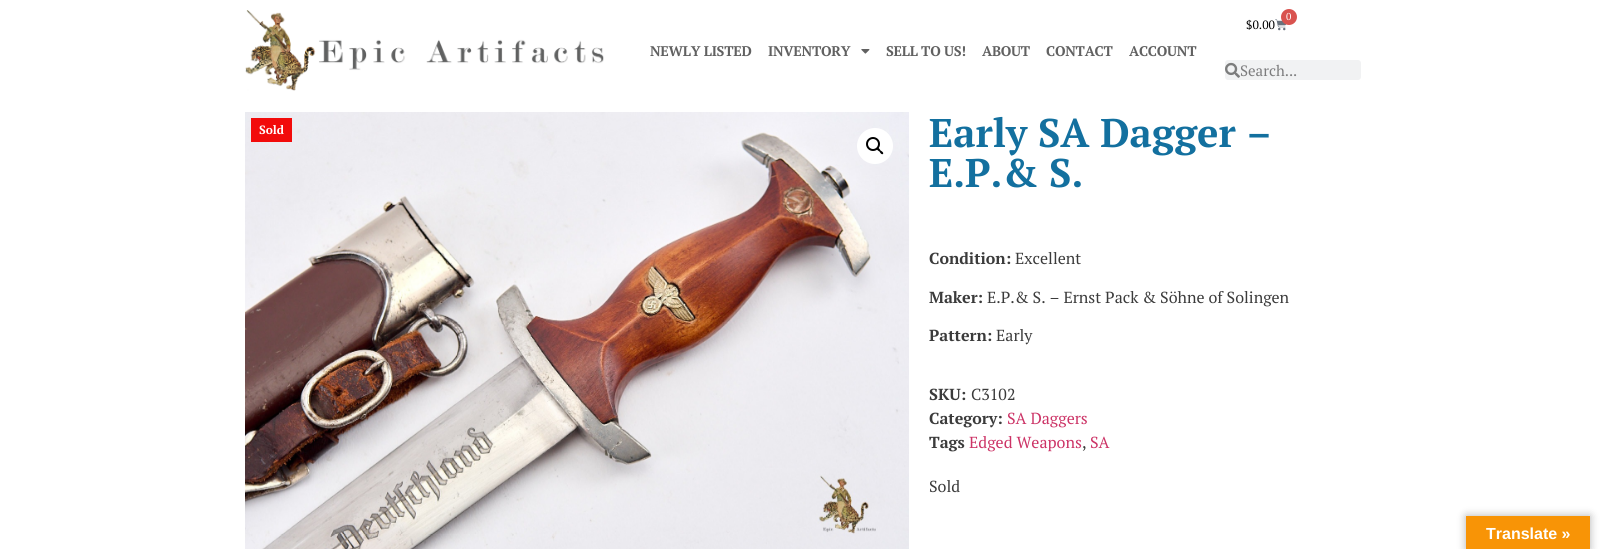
import math
import cairocffi as cairo

surface = cairo.ImageSurface(cairo.FORMAT_RGB24, 1610, 549)
cr = cairo.Context(surface)
options = cairo.FontOptions()
options.set_hint_metrics(cairo.HINT_METRICS_OFF)
options.set_hint_style(cairo.HINT_STYLE_NONE)
cr.set_font_options(options)
cr.set_miter_limit(4)


def use_color(code):
    cr.set_source_rgb(*(v / 255 for v in bytes.fromhex(code[-6:])))


def spaced_text(x, y, s, letter, word):
    cr.move_to(x, y)
    for ch in s:
        cr.show_text(ch)
        cr.rel_move_to(letter + word * (ch == ' '), 0)


def round_rect(x, y, w, h, r):
    cr.new_sub_path()
    for i, (u, v) in enumerate([(x + w - r, y + h - r), (x + r, y + h - r), (x + r, y + r), (x + w - r, y + r)]):
        cr.arc(u, v, r, i * math.pi / 2, (i + 1) * math.pi / 2)
    cr.close_path()


def shadow(x, y, w, h, r, blur, alpha):
    cr.push_group_with_content(cairo.CONTENT_ALPHA)
    cr.set_operator(cairo.OPERATOR_SOURCE)
    for i in range(15, -16, -2):
        e = blur * i / 6
        if min(w, h) + 2 * e > 0:
            cr.set_source_rgba(0, 0, 0, alpha * math.erfc((i - 1) / 8.5) / 2)
            round_rect(x - e, y - e, w + 2 * e, h + 2 * e, max(0, min(r + e + blur * .6, min(w, h) / 2 + e)))
            cr.fill()
    cr.mask(cr.pop_group())


def picture(path, x, y, w, h):
    cr.save()
    cr.set_source_surface(cairo.ImageSurface.create_from_png(path), x, y)
    cr.rectangle(x, y, w, h)
    cr.fill()
    cr.restore()


use_color("#ffffff")
cr.paint()
picture("img1.png", 245, 10, 359, 81)
cr.select_font_face("PT Serif", cairo.FONT_SLANT_NORMAL, cairo.FONT_WEIGHT_BOLD)
cr.set_font_size(14)
use_color("#616161")
spaced_text(650, 56, "NEWLY LISTED", -0.25, 0)
spaced_text(768, 56, "INVENTORY", -0.25, 0)
picture("img2.png", 861, 49, 9, 5)
spaced_text(886, 56, "SELL TO US!", -0.25, 0)
spaced_text(982, 56, "ABOUT", -0.25, 0)
spaced_text(1046, 56, "CONTACT", -0.25, 0)
spaced_text(1129, 56, "ACCOUNT", -0.25, 0)
picture("img3.png", 1275, 19, 12, 12)
use_color("#d9534f")
cr.arc(1289, 17, 8, 0, 2 * math.pi)
cr.fill()
cr.select_font_face("PT Serif")
cr.set_font_size(10)
use_color("#ffffff")
cr.move_to(1286, 20)
cr.show_text("0")
cr.set_font_size(12)
use_color("#000000")
cr.move_to(1246, 29)
cr.show_text("$0.00")
use_color("#f1f2f3")
round_rect(1225, 60, 136, 20, 3)
cr.fill()
picture("img4.png", 1225, 62, 15, 16)
cr.set_font_size(15)
use_color("#7c7c7d")
cr.move_to(1240, 76)
cr.show_text("Search...")
picture("img5.png", 245, 112, 664, 437)
use_color("#ffffff")
cr.arc(875, 146, 18, 0, 2 * math.pi)
cr.fill()
cr.arc(873, 144, 6, 0, 2 * math.pi)
use_color("#000000")
cr.stroke()
cr.new_path()
cr.move_to(877, 148)
cr.curve_to(878.5, 147, 880, 149.5, 880.5, 150.5)
cr.curve_to(881.5, 151, 884, 152.5, 883, 154)
cr.curve_to(881.5, 155, 880, 152.5, 879.5, 151.5)
cr.curve_to(878.5, 151, 876, 149.5, 877, 148)
cr.close_path()
cr.fill()
use_color("#f20b0b")
cr.rectangle(251, 118, 41, 24)
cr.fill()
cr.select_font_face("PT Serif", cairo.FONT_SLANT_NORMAL, cairo.FONT_WEIGHT_BOLD)
cr.set_font_size(12)
use_color("#ffffff")
cr.move_to(259, 134)
cr.show_text("Sold")
cr.set_font_size(40)
use_color("#13709f")
cr.move_to(929, 147)
cr.show_text("Early SA Dagger –")
cr.move_to(929, 187)
cr.show_text("E.P.& S.")
cr.set_font_size(16)
use_color("#3b3b3b")
cr.move_to(929, 264)
cr.show_text("Condition:")
cr.select_font_face("PT Serif")
cr.move_to(1015, 264)
cr.show_text("Excellent")
cr.select_font_face("PT Serif", cairo.FONT_SLANT_NORMAL, cairo.FONT_WEIGHT_BOLD)
cr.move_to(929, 303)
cr.show_text("Maker:")
cr.select_font_face("PT Serif")
cr.move_to(987, 303)
cr.show_text("E.P.& S. – Ernst Pack & Söhne of Solingen")
cr.select_font_face("PT Serif", cairo.FONT_SLANT_NORMAL, cairo.FONT_WEIGHT_BOLD)
cr.move_to(929, 341)
cr.show_text("Pattern:")
cr.select_font_face("PT Serif")
cr.move_to(996, 341)
cr.show_text("Early")
cr.select_font_face("PT Serif", cairo.FONT_SLANT_NORMAL, cairo.FONT_WEIGHT_BOLD)
cr.move_to(929, 400)
cr.show_text("SKU:")
cr.select_font_face("PT Serif")
cr.move_to(971, 400)
cr.show_text("C3102")
cr.select_font_face("PT Serif", cairo.FONT_SLANT_NORMAL, cairo.FONT_WEIGHT_BOLD)
cr.move_to(929, 424)
cr.show_text("Category:")
cr.select_font_face("PT Serif")
use_color("#cc3366")
cr.move_to(1007, 424)
cr.show_text("SA Daggers")
cr.select_font_face("PT Serif", cairo.FONT_SLANT_NORMAL, cairo.FONT_WEIGHT_BOLD)
use_color("#3b3b3b")
cr.move_to(929, 448)
cr.show_text("Tags")
cr.select_font_face("PT Serif")
use_color("#cc3366")
cr.move_to(969, 448)
cr.show_text("Edged Weapons")
use_color("#3b3b3b")
cr.move_to(1082, 448)
cr.show_text(",")
use_color("#cc3366")
cr.move_to(1090, 448)
cr.show_text("SA")
use_color("#3b3b3b")
cr.move_to(929, 492)
cr.show_text("Sold")
use_color("#000000")
shadow(1466, 516, 124, 33, 0, 4.5, 0.3)
use_color("#f89406")
cr.rectangle(1466, 516, 124, 33)
cr.fill()
cr.select_font_face("Liberation Sans", cairo.FONT_SLANT_NORMAL, cairo.FONT_WEIGHT_BOLD)
use_color("#ffffff")
cr.move_to(1486, 539)
cr.show_text("Translate »")
surface.write_to_png("result.png")
